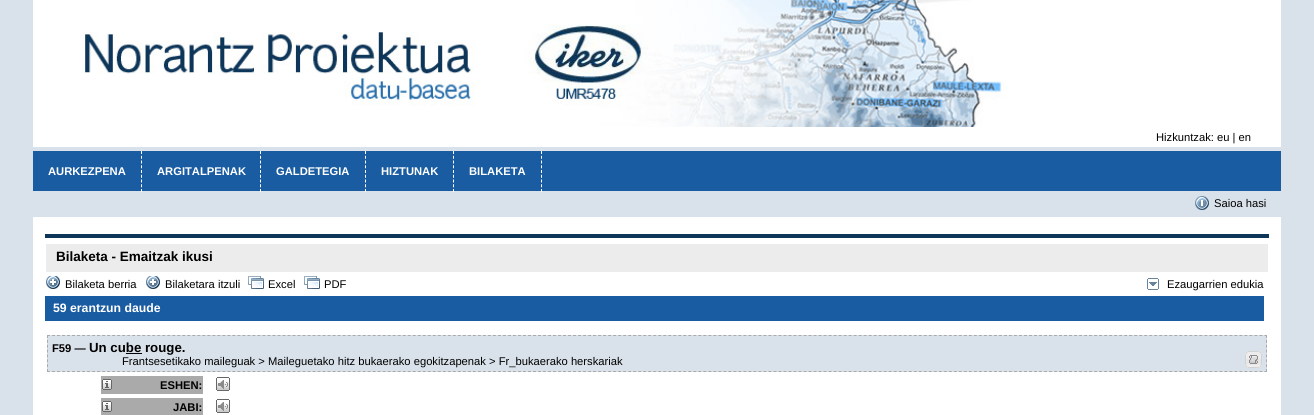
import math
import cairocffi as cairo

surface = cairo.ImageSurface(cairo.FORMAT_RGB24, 1314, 415)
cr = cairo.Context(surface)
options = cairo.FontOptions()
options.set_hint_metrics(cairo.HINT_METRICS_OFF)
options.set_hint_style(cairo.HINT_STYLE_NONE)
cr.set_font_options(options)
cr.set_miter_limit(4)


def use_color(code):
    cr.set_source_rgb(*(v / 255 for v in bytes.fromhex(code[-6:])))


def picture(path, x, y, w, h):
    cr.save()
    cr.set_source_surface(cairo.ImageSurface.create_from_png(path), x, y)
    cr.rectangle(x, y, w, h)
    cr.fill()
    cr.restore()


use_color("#d9e2ea")
cr.paint()
use_color("#ffffff")
cr.rectangle(33, 0, 1248, 147)
cr.fill()
picture("img1.png", 82, 0, 925, 127)
cr.select_font_face("Liberation Sans")
cr.set_font_size(11.2)
use_color("#000000")
cr.move_to(1156, 141)
cr.show_text("Hizkuntzak: eu | en")
use_color("#195ca2")
cr.rectangle(33, 151, 1248, 40)
cr.fill()
cr.new_path()
cr.move_to(141.5, 151)
cr.line_to(141.5, 192)
use_color("#ffffff")
cr.set_line_width(1)
cr.set_dash([3, 1.75])
cr.stroke()
cr.select_font_face("Liberation Sans", cairo.FONT_SLANT_NORMAL, cairo.FONT_WEIGHT_BOLD)
cr.move_to(48, 175)
cr.show_text("AURKEZPENA")
cr.new_path()
cr.move_to(260.5, 151)
cr.line_to(260.5, 192)
cr.stroke()
cr.move_to(157, 175)
cr.show_text("ARGITALPENAK")
cr.new_path()
cr.move_to(365.5, 151)
cr.line_to(365.5, 192)
cr.stroke()
cr.move_to(276, 175)
cr.show_text("GALDETEGIA")
cr.new_path()
cr.move_to(453.5, 151)
cr.line_to(453.5, 192)
cr.stroke()
cr.move_to(381, 175)
cr.show_text("HIZTUNAK")
cr.new_path()
cr.move_to(541.5, 151)
cr.line_to(541.5, 192)
cr.stroke()
cr.move_to(469, 175)
cr.show_text("BILAKETA")
cr.rectangle(33, 217, 1248, 198)
cr.fill()
picture("img2.png", 1195, 196, 14, 14)
cr.select_font_face("Liberation Sans")
use_color("#000000")
cr.move_to(1214, 207)
cr.show_text("Saioa hasi")
use_color("#0e3659")
cr.rectangle(45, 234, 1224, 4)
cr.fill()
use_color("#ececec")
cr.rectangle(46, 244, 1222, 28)
cr.fill()
cr.select_font_face("Liberation Sans", cairo.FONT_SLANT_NORMAL, cairo.FONT_WEIGHT_BOLD)
cr.set_font_size(13.5)
use_color("#000000")
cr.move_to(56, 261)
cr.show_text("Bilaketa - Emaitzak ikusi")
picture("img3.png", 46, 276, 14, 13)
cr.select_font_face("Liberation Sans")
cr.set_font_size(11.2)
cr.move_to(65, 288)
cr.show_text("Bilaketa berria")
picture("img3.png", 146, 276, 14, 13)
cr.move_to(165, 288)
cr.show_text("Bilaketara itzuli")
picture("img4.png", 248, 276, 16, 13)
cr.move_to(268, 288)
cr.show_text("Excel")
picture("img4.png", 304, 276, 16, 13)
cr.move_to(324, 288)
cr.show_text("PDF")
picture("img5.png", 1147, 278, 12, 12)
cr.move_to(1167, 288)
cr.show_text("Ezaugarrien edukia")
use_color("#195ca2")
cr.rectangle(45, 296, 1219, 25)
cr.fill()
cr.select_font_face("Liberation Sans", cairo.FONT_SLANT_NORMAL, cairo.FONT_WEIGHT_BOLD)
cr.set_font_size(12.25)
use_color("#ffffff")
cr.move_to(53, 312)
cr.show_text("59 erantzun daude")
use_color("#d9e2ea")
cr.rectangle(47, 335, 1220, 37)
cr.fill()
cr.new_path()
cr.move_to(47, 335.5)
cr.line_to(1267, 335.5)
use_color("#aaaaaa")
cr.set_dash([3, 2.01])
cr.stroke()
cr.new_path()
cr.move_to(1266.5, 335)
cr.line_to(1266.5, 372)
cr.set_dash([3, 1.86])
cr.stroke()
cr.new_path()
cr.move_to(47, 371.5)
cr.line_to(1267, 371.5)
cr.set_dash([3, 2.01])
cr.stroke()
cr.new_path()
cr.move_to(47.5, 335)
cr.line_to(47.5, 372)
cr.set_dash([3, 1.86])
cr.stroke()
cr.set_font_size(11.2)
use_color("#000000")
cr.move_to(52, 352)
cr.show_text("F59 —")
cr.set_font_size(13.25)
cr.move_to(89, 352)
cr.show_text("Un cube rouge.")
cr.rectangle(126, 353, 16, 1)
cr.fill()
cr.select_font_face("Liberation Sans")
cr.set_font_size(11.2)
cr.move_to(122, 365)
cr.show_text("Frantsesetikako maileguak > Maileguetako hitz bukaerako egokitzapenak > Fr_bukaerako herskariak")
picture("img6.png", 1245, 351, 17, 17)
use_color("#aaaaaa")
cr.rectangle(101, 376, 102, 18)
cr.fill()
picture("img7.png", 102, 379, 10, 11)
cr.select_font_face("Liberation Sans", cairo.FONT_SLANT_NORMAL, cairo.FONT_WEIGHT_BOLD)
use_color("#000000")
cr.move_to(160, 389)
cr.show_text("ESHEN:")
picture("img8.png", 216, 377, 14, 14)
use_color("#aaaaaa")
cr.rectangle(101, 398, 102, 17)
cr.fill()
picture("img7.png", 102, 401, 10, 11)
use_color("#000000")
cr.move_to(173, 411)
cr.show_text("JABI:")
picture("img8.png", 216, 399, 14, 14)
surface.write_to_png("result.png")
